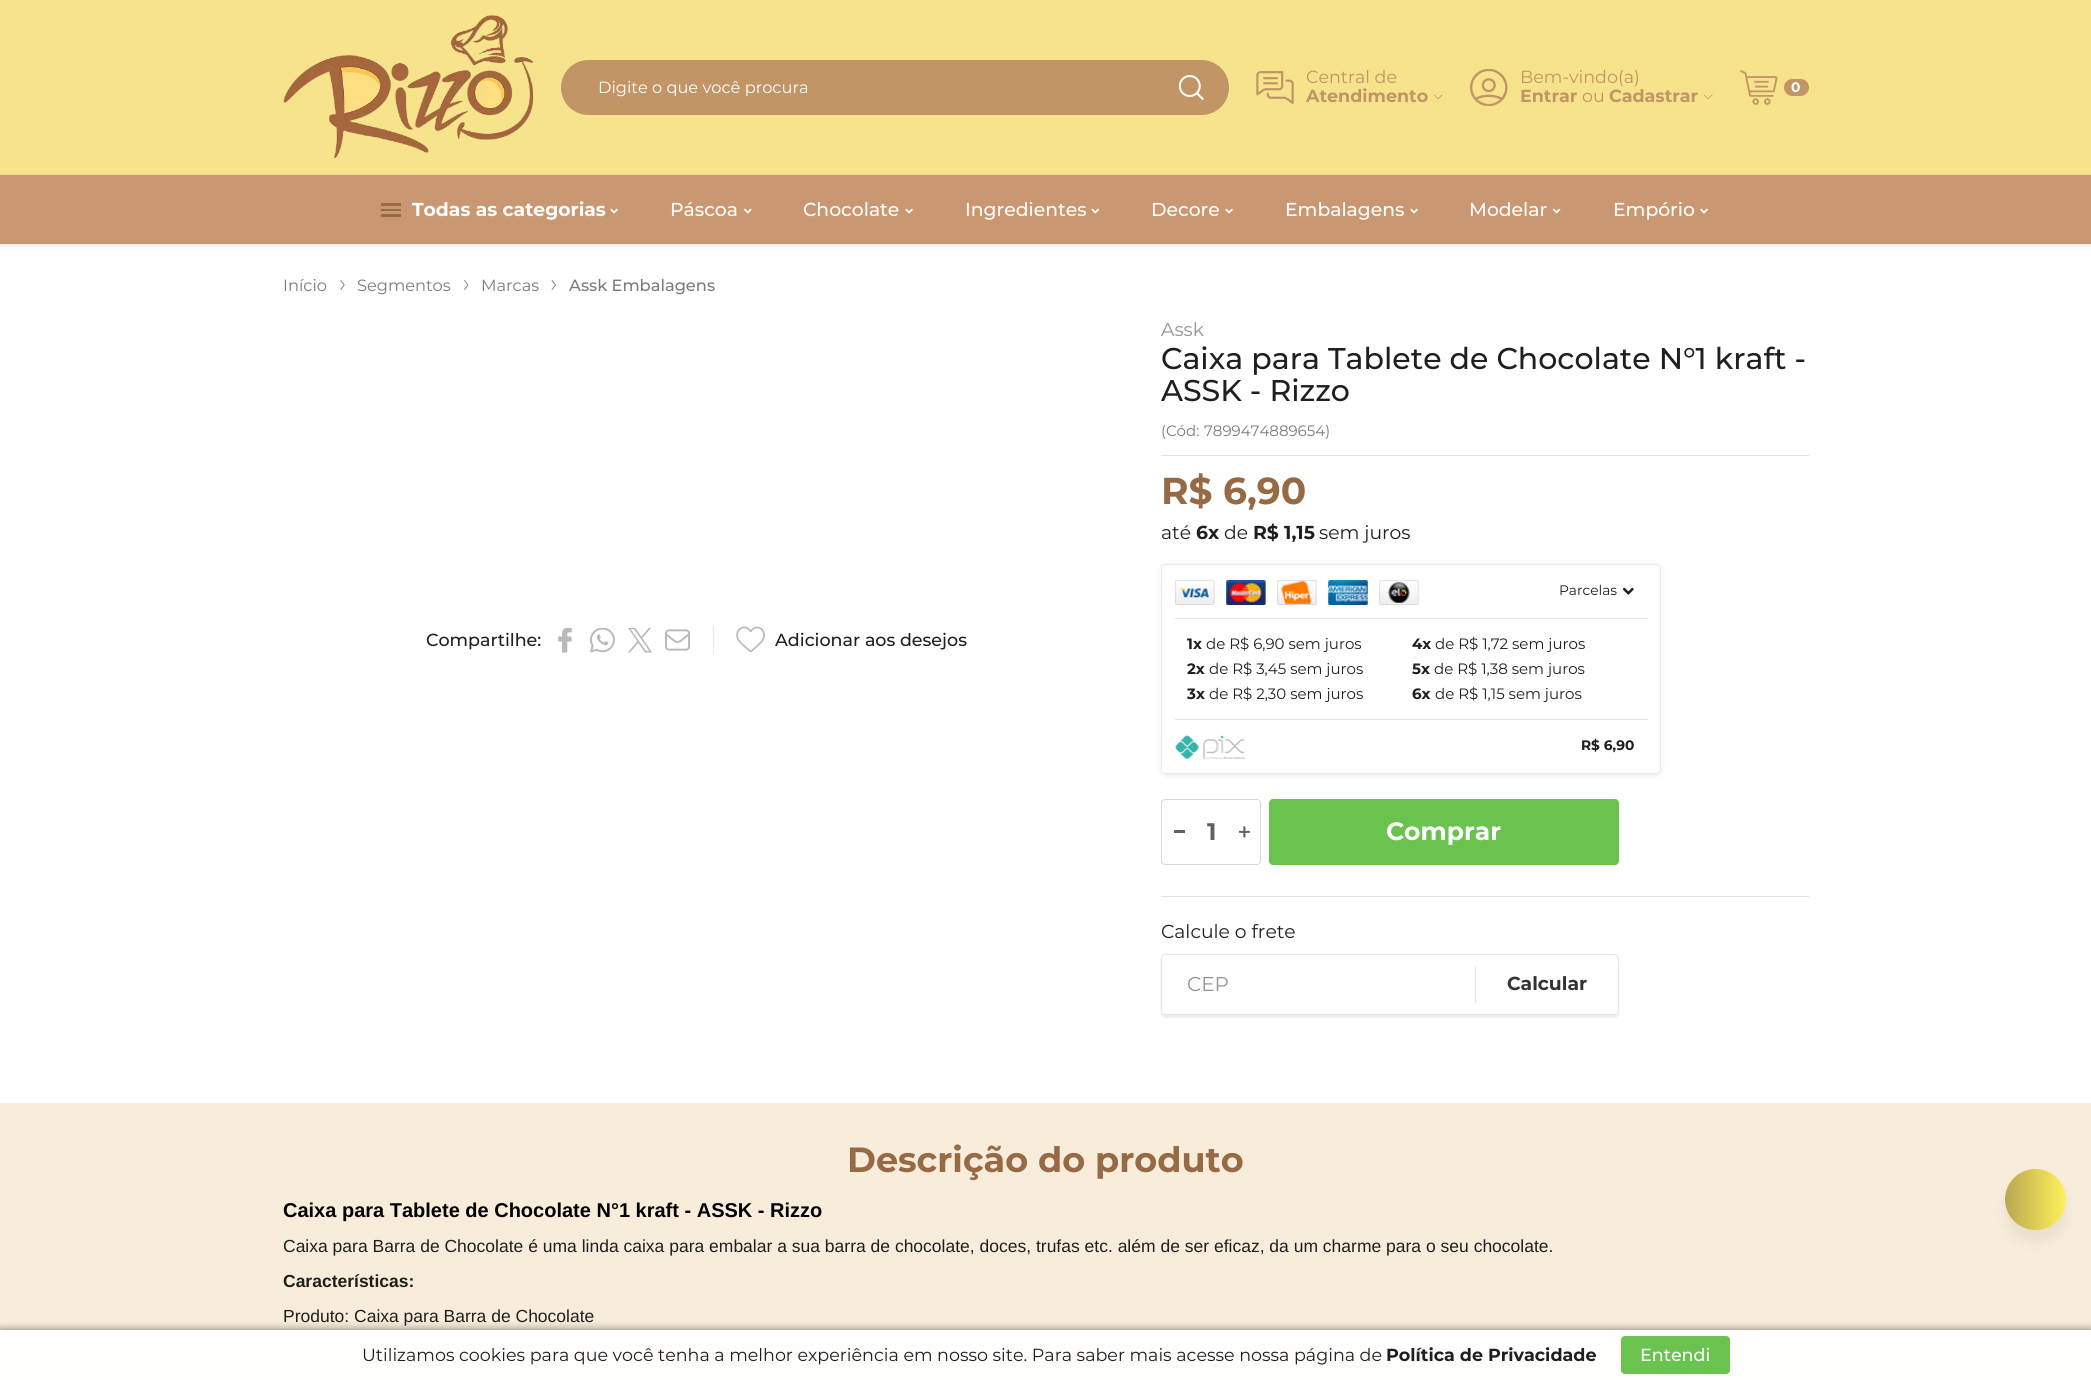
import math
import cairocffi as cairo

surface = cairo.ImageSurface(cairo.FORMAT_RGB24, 2091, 1380)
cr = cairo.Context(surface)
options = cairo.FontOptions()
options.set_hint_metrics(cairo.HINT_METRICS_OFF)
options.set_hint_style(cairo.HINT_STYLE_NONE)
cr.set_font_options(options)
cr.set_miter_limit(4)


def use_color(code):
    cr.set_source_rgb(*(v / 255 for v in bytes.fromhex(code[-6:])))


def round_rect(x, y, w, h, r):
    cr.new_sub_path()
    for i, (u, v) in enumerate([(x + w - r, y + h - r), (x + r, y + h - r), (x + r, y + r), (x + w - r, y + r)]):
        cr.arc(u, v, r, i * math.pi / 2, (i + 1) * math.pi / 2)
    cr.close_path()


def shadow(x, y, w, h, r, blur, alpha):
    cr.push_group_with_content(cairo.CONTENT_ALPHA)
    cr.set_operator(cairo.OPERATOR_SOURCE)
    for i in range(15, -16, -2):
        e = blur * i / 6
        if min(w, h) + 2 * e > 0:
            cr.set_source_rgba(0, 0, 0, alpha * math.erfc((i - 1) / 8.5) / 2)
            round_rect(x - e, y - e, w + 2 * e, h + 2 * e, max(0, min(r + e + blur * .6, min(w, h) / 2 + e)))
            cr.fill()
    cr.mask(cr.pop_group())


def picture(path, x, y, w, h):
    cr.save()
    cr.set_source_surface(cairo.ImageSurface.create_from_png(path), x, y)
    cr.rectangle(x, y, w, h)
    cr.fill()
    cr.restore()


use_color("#f8eddb")
cr.paint()
use_color("#fffefd")
cr.rectangle(0, 1330, 2091, 50)
cr.fill()
use_color("#ffffff")
cr.rectangle(0, 244, 2091, 859)
cr.fill()
use_color("#525252")
shadow(0, 176, 2091, 69, 0, 2.5, 0.2)
use_color("#f7e38b")
cr.rectangle(0, 0, 2091, 174)
cr.fill()
use_color("#ead88c")
cr.rectangle(0, 174, 2091, 1)
cr.fill()
picture("img1.png", 283, 15, 251, 144)
use_color("#c19566")
round_rect(561, 60, 668, 55, 27.5)
cr.fill()
cr.select_font_face("Montserrat")
cr.set_font_size(16.25)
use_color("#ffffff")
cr.move_to(598, 93)
cr.show_text("Digite o que você procura")
picture("img2.png", 1179, 75, 25, 25)
picture("img3.png", 1256, 71, 38, 33)
cr.set_font_size(17.5)
use_color("#c19566")
cr.move_to(1306, 83)
cr.show_text("Central de")
cr.select_font_face("Montserrat", cairo.FONT_SLANT_NORMAL, cairo.FONT_WEIGHT_BOLD)
cr.move_to(1306, 102)
cr.show_text("Atendimento")
picture("img4.png", 1434, 94, 9, 6)
picture("img5.png", 1470, 69, 38, 37)
cr.select_font_face("Montserrat")
cr.move_to(1520, 83)
cr.show_text("Bem-vindo(a)")
cr.select_font_face("Montserrat", cairo.FONT_SLANT_NORMAL, cairo.FONT_WEIGHT_BOLD)
cr.move_to(1520, 102)
cr.show_text("Entrar")
cr.select_font_face("Montserrat")
cr.move_to(1582, 102)
cr.show_text("ou")
cr.select_font_face("Montserrat", cairo.FONT_SLANT_NORMAL, cairo.FONT_WEIGHT_BOLD)
cr.move_to(1609, 102)
cr.show_text("Cadastrar")
picture("img4.png", 1704, 94, 9, 6)
picture("img6.png", 1740, 70, 38, 35)
round_rect(1784, 79, 25, 17, 8.5)
cr.fill()
cr.set_font_size(13.75)
use_color("#ffffff")
cr.move_to(1791, 92)
cr.show_text("0")
use_color("#c99772")
cr.rectangle(0, 175, 2091, 69)
cr.fill()
use_color("#966a44")
cr.rectangle(381, 214, 20, 3)
cr.fill()
cr.rectangle(381, 209, 20, 2)
cr.fill()
cr.rectangle(381, 203, 20, 3)
cr.fill()
cr.set_font_size(18.75)
use_color("#ffffff")
cr.move_to(412, 216)
cr.show_text("Todas as categorias")
picture("img7.png", 610, 208, 8, 6)
cr.select_font_face("Montserrat Medium")
cr.move_to(670, 216)
cr.show_text("Páscoa")
picture("img8.png", 744, 208, 8, 6)
cr.move_to(803, 216)
cr.show_text("Chocolate")
picture("img7.png", 905, 208, 8, 6)
cr.move_to(965, 216)
cr.show_text("Ingredientes")
picture("img9.png", 1091, 208, 9, 6)
cr.move_to(1151, 216)
cr.show_text("Decore")
picture("img7.png", 1225, 208, 8, 6)
cr.move_to(1285, 216)
cr.show_text("Embalagens")
picture("img7.png", 1410, 208, 8, 6)
cr.move_to(1469, 216)
cr.show_text("Modelar")
picture("img10.png", 1552, 208, 9, 6)
cr.move_to(1613, 216)
cr.show_text("Empório")
picture("img7.png", 1700, 208, 8, 6)
cr.select_font_face("Montserrat")
cr.set_font_size(16.25)
use_color("#7b7b7b")
cr.move_to(283, 291)
cr.show_text("Início")
picture("img11.png", 340, 280, 5, 10)
cr.move_to(357, 291)
cr.show_text("Segmentos")
picture("img12.png", 464, 280, 5, 10)
cr.move_to(481, 291)
cr.show_text("Marcas")
picture("img13.png", 551, 280, 5, 10)
cr.select_font_face("Montserrat Medium")
cr.move_to(569, 291)
cr.show_text("Assk Embalagens")
cr.set_font_size(17.5)
use_color("#201f1f")
cr.move_to(426, 646)
cr.show_text("Compartilhe:")
picture("img14.png", 558, 628, 14, 25)
picture("img15.png", 590, 628, 25, 25)
picture("img16.png", 628, 628, 24, 25)
picture("img17.png", 665, 629, 25, 22)
use_color("#e7e7e7")
cr.rectangle(713, 625, 1, 29)
cr.fill()
picture("img18.png", 736, 626, 29, 27)
use_color("#201f1f")
cr.move_to(775, 646)
cr.show_text("Adicionar aos desejos")
use_color("#e1e1e1")
cr.rectangle(1161, 455, 648, 1)
cr.fill()
cr.select_font_face("Montserrat")
cr.set_font_size(18.75)
use_color("#949494")
cr.move_to(1161, 336)
cr.show_text("Assk")
cr.select_font_face("Montserrat Medium")
cr.set_font_size(30)
use_color("#201f1f")
cr.move_to(1161, 369)
cr.show_text("Caixa para Tablete de Chocolate N°1 kraft -")
cr.move_to(1161, 401)
cr.show_text("ASSK - Rizzo")
cr.select_font_face("Montserrat")
cr.set_font_size(15)
use_color("#7b7b7b")
cr.move_to(1161, 436)
cr.show_text("(Cód:")
cr.move_to(1204, 436)
cr.show_text("7899474889654)")
cr.select_font_face("Montserrat", cairo.FONT_SLANT_NORMAL, cairo.FONT_WEIGHT_BOLD)
cr.set_font_size(37.5)
use_color("#966a44")
cr.move_to(1161, 504)
cr.show_text("R$ 6,90")
cr.select_font_face("Montserrat")
cr.set_font_size(18.75)
use_color("#201f1f")
cr.move_to(1161, 539)
cr.show_text("até")
cr.select_font_face("Montserrat", cairo.FONT_SLANT_NORMAL, cairo.FONT_WEIGHT_BOLD)
cr.move_to(1196, 539)
cr.show_text("6x")
cr.select_font_face("Montserrat")
cr.move_to(1224, 539)
cr.show_text("de")
cr.select_font_face("Montserrat", cairo.FONT_SLANT_NORMAL, cairo.FONT_WEIGHT_BOLD)
cr.move_to(1253, 539)
cr.show_text("R$ 1,15")
cr.select_font_face("Montserrat")
cr.move_to(1319, 539)
cr.show_text("sem juros")
cr.save()
cr.set_fill_rule(cairo.FILL_RULE_EVEN_ODD)
cr.new_path()
cr.move_to(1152, 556)
cr.line_to(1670, 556)
cr.line_to(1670, 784)
cr.line_to(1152, 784)
cr.close_path()
cr.move_to(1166, 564)
cr.line_to(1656, 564)
cr.curve_to(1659, 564, 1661, 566, 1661, 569)
cr.line_to(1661, 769)
cr.curve_to(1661, 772, 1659, 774, 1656, 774)
cr.line_to(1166, 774)
cr.curve_to(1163, 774, 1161, 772, 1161, 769)
cr.line_to(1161, 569)
cr.curve_to(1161, 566, 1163, 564, 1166, 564)
cr.close_path()
cr.clip()
use_color("#b1b1b1")
shadow(1161, 565, 500, 210, 5, 2.5, 0.28)
cr.restore()
round_rect(1161.5, 564.5, 499, 209, 4.5)
use_color("#eaeaea")
cr.set_line_width(1)
cr.stroke()
picture("img19.png", 1175, 580, 244, 25)
cr.set_font_size(13.75)
use_color("#201f1f")
cr.move_to(1559, 595)
cr.show_text("Parcelas")
picture("img20.png", 1622, 587, 12, 8)
use_color("#e5e5e5")
cr.rectangle(1175, 618, 473, 1)
cr.fill()
cr.select_font_face("Montserrat", cairo.FONT_SLANT_NORMAL, cairo.FONT_WEIGHT_BOLD)
cr.set_font_size(15)
use_color("#201f1f")
cr.move_to(1187, 649)
cr.show_text("1x")
cr.select_font_face("Montserrat")
cr.move_to(1206, 649)
cr.show_text("de R$ 6,90 sem juros")
cr.select_font_face("Montserrat", cairo.FONT_SLANT_NORMAL, cairo.FONT_WEIGHT_BOLD)
cr.move_to(1187, 674)
cr.show_text("2x")
cr.select_font_face("Montserrat")
cr.move_to(1209, 674)
cr.show_text("de R$ 3,45 sem juros")
cr.select_font_face("Montserrat", cairo.FONT_SLANT_NORMAL, cairo.FONT_WEIGHT_BOLD)
cr.move_to(1187, 699)
cr.show_text("3x")
cr.select_font_face("Montserrat")
cr.move_to(1209, 699)
cr.show_text("de R$ 2,30 sem juros")
cr.select_font_face("Montserrat", cairo.FONT_SLANT_NORMAL, cairo.FONT_WEIGHT_BOLD)
cr.move_to(1412, 649)
cr.show_text("4x")
cr.select_font_face("Montserrat")
cr.move_to(1435, 649)
cr.show_text("de R$ 1,72 sem juros")
cr.select_font_face("Montserrat", cairo.FONT_SLANT_NORMAL, cairo.FONT_WEIGHT_BOLD)
cr.move_to(1412, 674)
cr.show_text("5x")
cr.select_font_face("Montserrat")
cr.move_to(1434, 674)
cr.show_text("de R$ 1,38 sem juros")
cr.select_font_face("Montserrat", cairo.FONT_SLANT_NORMAL, cairo.FONT_WEIGHT_BOLD)
cr.move_to(1412, 699)
cr.show_text("6x")
cr.select_font_face("Montserrat")
cr.move_to(1435, 699)
cr.show_text("de R$ 1,15 sem juros")
use_color("#e5e5e5")
cr.rectangle(1175, 719, 473, 1)
cr.fill()
picture("img21.png", 1175, 735, 70, 25)
cr.select_font_face("Montserrat", cairo.FONT_SLANT_NORMAL, cairo.FONT_WEIGHT_BOLD)
cr.set_font_size(13.75)
use_color("#201f1f")
cr.move_to(1581, 750)
cr.show_text("R$ 6,90")
round_rect(1161.5, 799.5, 99, 65, 3.5)
use_color("#d8d8d8")
cr.stroke()
use_color("#616161")
cr.rectangle(1174, 830, 11, 3)
cr.fill()
cr.set_font_size(24)
cr.move_to(1207, 840)
cr.show_text("1")
picture("img22.png", 1239, 826, 11, 12)
use_color("#69c34e")
round_rect(1269, 799, 350, 66, 4)
cr.fill()
cr.set_font_size(25)
use_color("#ffffff")
cr.move_to(1386, 840)
cr.show_text("Comprar")
use_color("#e1e1e1")
cr.rectangle(1161, 896, 648, 1)
cr.fill()
cr.select_font_face("Montserrat")
cr.set_font_size(18.75)
use_color("#201f1f")
cr.move_to(1161, 938)
cr.show_text("Calcule o frete")
cr.save()
cr.set_fill_rule(cairo.FILL_RULE_EVEN_ODD)
cr.new_path()
cr.move_to(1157, 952)
cr.line_to(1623, 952)
cr.line_to(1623, 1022)
cr.line_to(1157, 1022)
cr.close_path()
cr.move_to(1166, 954)
cr.line_to(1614, 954)
cr.curve_to(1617, 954, 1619, 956, 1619, 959)
cr.line_to(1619, 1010)
cr.curve_to(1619, 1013, 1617, 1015, 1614, 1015)
cr.line_to(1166, 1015)
cr.curve_to(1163, 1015, 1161, 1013, 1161, 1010)
cr.line_to(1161, 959)
cr.curve_to(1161, 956, 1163, 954, 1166, 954)
cr.close_path()
cr.clip()
use_color("#cdcdcd")
shadow(1161, 956, 458, 62, 5, 1, 0.35)
cr.restore()
round_rect(1161.5, 954.5, 457, 60, 4.5)
use_color("#e5e5e5")
cr.stroke()
cr.set_font_size(20)
use_color("#949494")
cr.move_to(1187, 991)
cr.show_text("CEP")
use_color("#e5e5e5")
cr.rectangle(1475, 966, 1, 37)
cr.fill()
cr.select_font_face("Montserrat", cairo.FONT_SLANT_NORMAL, cairo.FONT_WEIGHT_BOLD)
cr.set_font_size(18.75)
use_color("#333333")
cr.move_to(1507, 990)
cr.show_text("Calcular")
cr.set_font_size(35)
use_color("#966a44")
cr.move_to(847, 1172)
cr.show_text("Descrição do produto")
cr.select_font_face("Liberation Sans", cairo.FONT_SLANT_NORMAL, cairo.FONT_WEIGHT_BOLD)
cr.set_font_size(20)
use_color("#000000")
cr.move_to(283, 1217)
cr.show_text("Caixa para Tablete de Chocolate N°1 kraft - ASSK - Rizzo")
cr.select_font_face("Liberation Sans")
cr.set_font_size(17.5)
use_color("#201f1f")
cr.move_to(283, 1252)
cr.show_text("Caixa para Barra de Chocolate é uma linda caixa para embalar a sua barra de chocolate, doces, trufas etc. além de ser eficaz, da um charme para o seu chocolate.")
cr.select_font_face("Liberation Sans", cairo.FONT_SLANT_NORMAL, cairo.FONT_WEIGHT_BOLD)
cr.move_to(283, 1287)
cr.show_text("Características:")
cr.select_font_face("Liberation Sans")
cr.move_to(283, 1322)
cr.show_text("Produto: Caixa para Barra de Chocolate")
use_color("#676767")
shadow(2005, 1181, 61, 62, 30.5, 5, 0.1)
gradient = cairo.LinearGradient(2005, 1199, 2066, 1199)
gradient.add_color_stop_rgba(0, 0.722, 0.659, 0.318, 1)
gradient.add_color_stop_rgba(1, 1, 0.945, 0.353, 1)
cr.set_source(gradient)
cr.arc(2035.5, 1199.5, 30.5, 0, 2 * math.pi)
cr.fill()
cr.save()
cr.rectangle(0, 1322, 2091, 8)
cr.clip()
use_color("#000000")
shadow(0, 1330, 2091, 50, 0, 4.5, 0.5)
cr.restore()
cr.select_font_face("Montserrat")
use_color("#201f1f")
cr.move_to(362, 1361)
cr.show_text("Utilizamos cookies para que você tenha a melhor experiência em nosso site. Para saber mais acesse nossa página de")
cr.select_font_face("Montserrat", cairo.FONT_SLANT_NORMAL, cairo.FONT_WEIGHT_BOLD)
cr.move_to(1386, 1361)
cr.show_text("Política de Privacidade")
use_color("#69c34e")
round_rect(1621, 1336, 109, 38, 4)
cr.fill()
cr.select_font_face("Montserrat Medium")
use_color("#ffffff")
cr.move_to(1640, 1361)
cr.show_text("Entendi")
surface.write_to_png("result.png")
